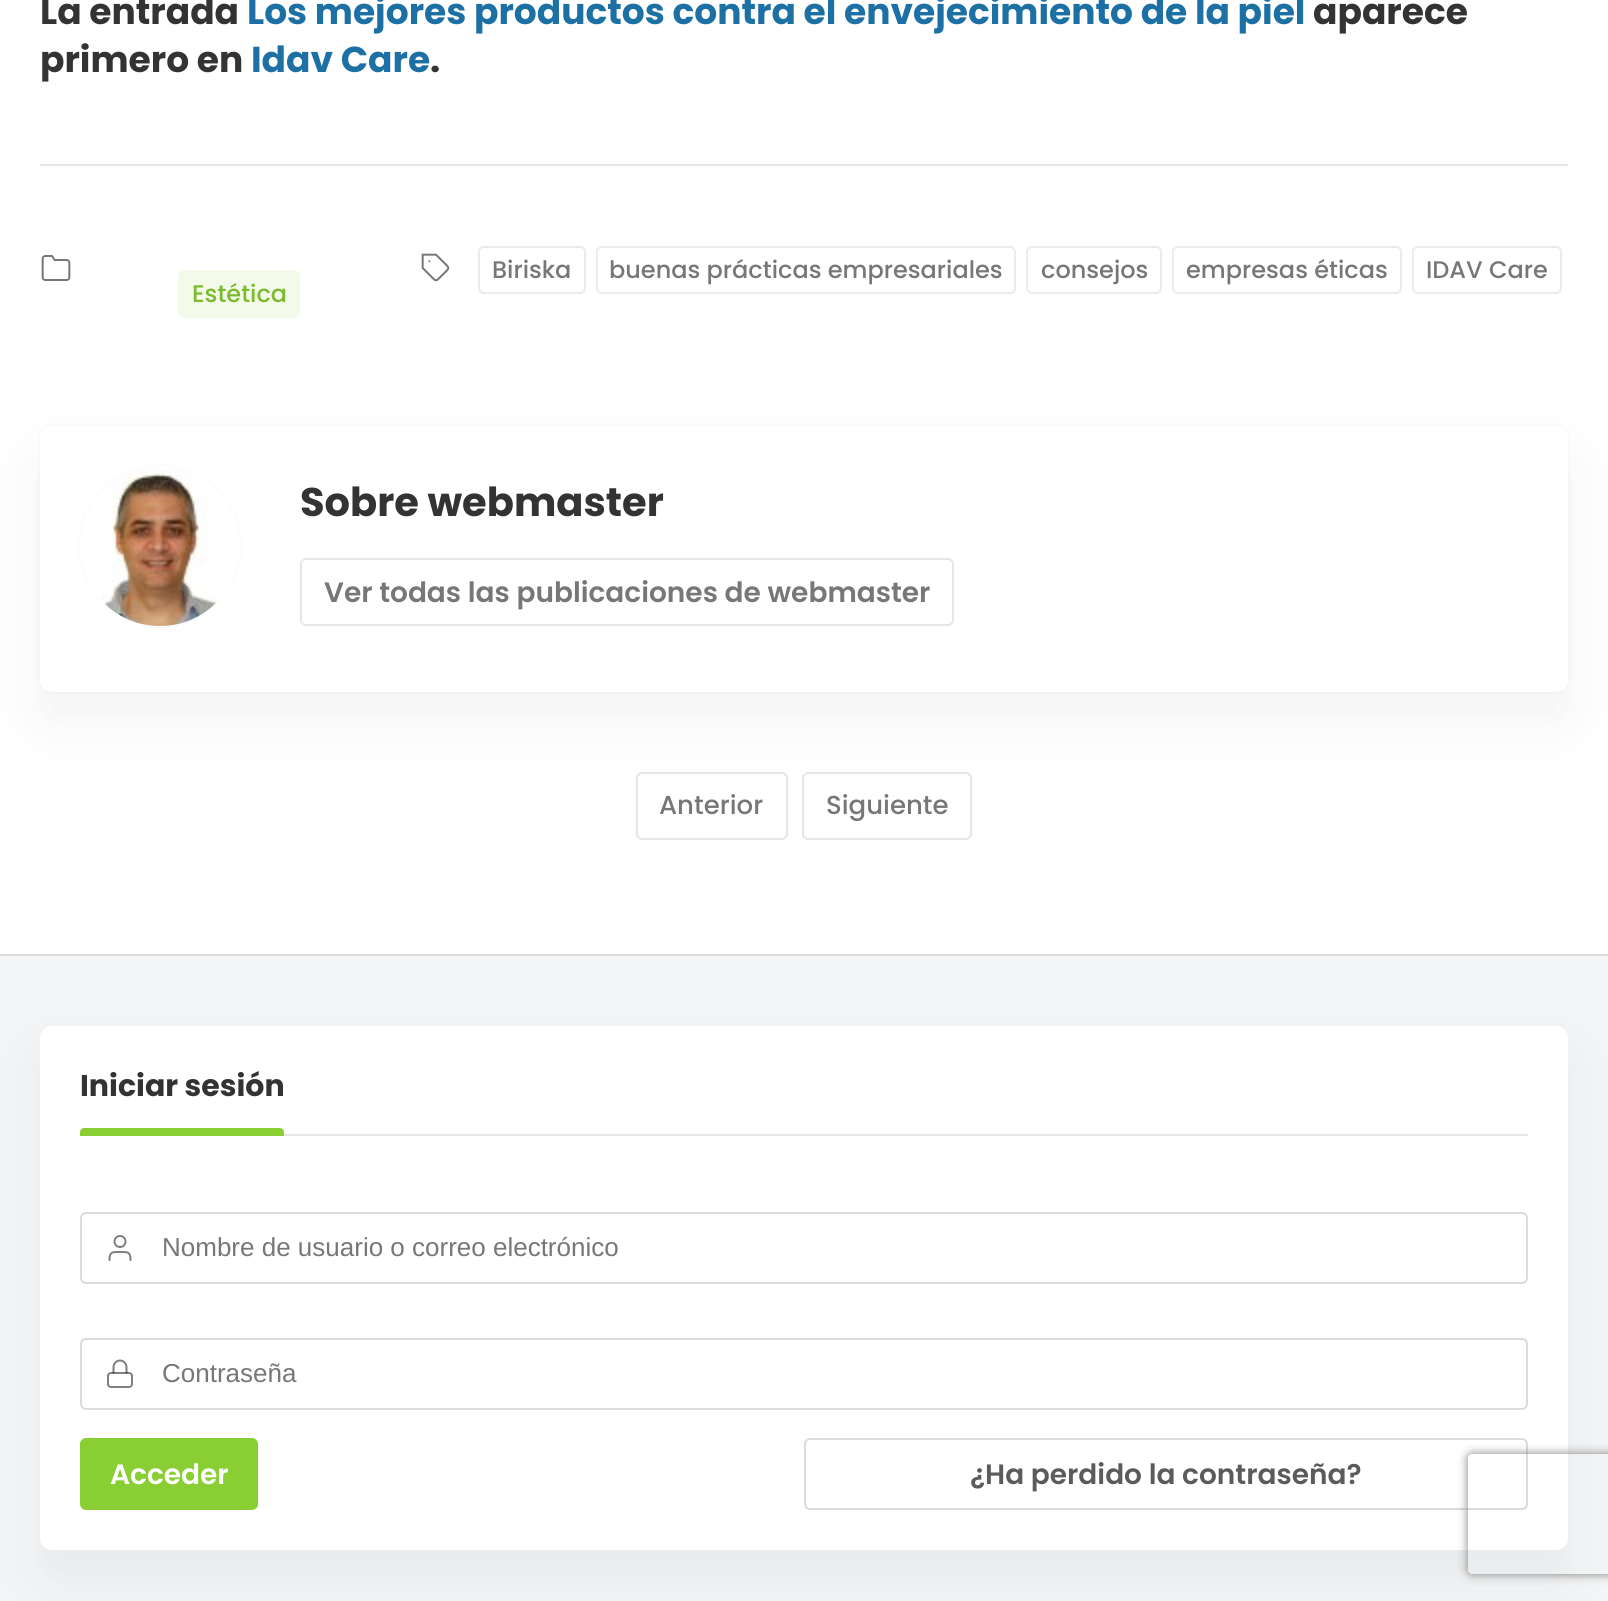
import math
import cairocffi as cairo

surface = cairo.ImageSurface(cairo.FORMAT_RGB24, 1608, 1601)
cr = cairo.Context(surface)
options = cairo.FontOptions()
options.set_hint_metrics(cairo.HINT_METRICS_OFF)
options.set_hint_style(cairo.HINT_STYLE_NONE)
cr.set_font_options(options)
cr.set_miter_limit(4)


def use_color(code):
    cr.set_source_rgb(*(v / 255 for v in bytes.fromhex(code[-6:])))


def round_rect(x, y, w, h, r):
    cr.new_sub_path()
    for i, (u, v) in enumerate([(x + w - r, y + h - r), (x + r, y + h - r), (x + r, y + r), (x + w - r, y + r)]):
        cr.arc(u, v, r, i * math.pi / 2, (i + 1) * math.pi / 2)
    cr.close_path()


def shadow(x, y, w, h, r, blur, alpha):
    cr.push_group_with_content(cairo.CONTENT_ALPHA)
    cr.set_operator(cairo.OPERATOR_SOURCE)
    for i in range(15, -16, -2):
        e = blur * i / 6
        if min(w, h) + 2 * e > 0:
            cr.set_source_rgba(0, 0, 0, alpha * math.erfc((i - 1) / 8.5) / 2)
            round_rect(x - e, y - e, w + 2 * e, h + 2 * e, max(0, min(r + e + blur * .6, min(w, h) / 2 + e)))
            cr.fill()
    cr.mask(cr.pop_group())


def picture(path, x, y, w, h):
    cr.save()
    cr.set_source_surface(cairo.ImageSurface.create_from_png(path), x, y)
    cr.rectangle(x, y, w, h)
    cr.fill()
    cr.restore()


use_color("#ffffff")
cr.paint()
cr.select_font_face("Poppins", cairo.FONT_SLANT_NORMAL, cairo.FONT_WEIGHT_BOLD)
cr.set_font_size(36)
use_color("#333333")
cr.move_to(40, 24)
cr.show_text("La entrada")
use_color("#1d70a3")
cr.move_to(247, 24)
cr.show_text("Los mejores productos contra el envejecimiento de la piel")
use_color("#333333")
cr.move_to(1313, 24)
cr.show_text("aparece")
cr.move_to(40, 72)
cr.show_text("primero en")
use_color("#1d70a3")
cr.move_to(251, 72)
cr.show_text("Idav Care")
use_color("#333333")
cr.move_to(430, 72)
cr.show_text(".")
use_color("#e6e6e6")
cr.rectangle(40, 164, 1528, 2)
cr.fill()
picture("img1.png", 421, 253, 29, 29)
round_rect(479, 247, 106, 46, 5)
use_color("#ebebeb")
cr.stroke()
cr.select_font_face("Poppins Medium")
cr.set_font_size(24)
use_color("#777777")
cr.move_to(492, 278)
cr.show_text("Biriska")
round_rect(597, 247, 418, 46, 5)
use_color("#ebebeb")
cr.stroke()
use_color("#777777")
cr.move_to(609, 278)
cr.show_text("buenas prácticas empresariales")
round_rect(1027, 247, 134, 46, 5)
use_color("#ebebeb")
cr.stroke()
use_color("#777777")
cr.move_to(1041, 278)
cr.show_text("consejos")
round_rect(1173, 247, 228, 46, 5)
use_color("#ebebeb")
cr.stroke()
use_color("#777777")
cr.move_to(1186, 278)
cr.show_text("empresas éticas")
round_rect(1413, 247, 148, 46, 5)
use_color("#ebebeb")
cr.stroke()
use_color("#777777")
cr.move_to(1426, 278)
cr.show_text("IDAV Care")
picture("img2.png", 41, 255, 30, 26)
use_color("#f3faea")
round_rect(178, 270, 122, 48, 6)
cr.fill()
use_color("#7aba2c")
cr.move_to(192, 302)
cr.show_text("Estética")
round_rect(39, 425, 1530, 268, 13)
use_color("#fcfcfc")
cr.stroke()
round_rect(637, 773, 150, 66, 5)
use_color("#e6e6e6")
cr.stroke()
round_rect(803, 773, 168, 66, 5)
cr.stroke()
use_color("#000000")
shadow(40, 456, 1528, 266, 12, 30, 0.05)
use_color("#ffffff")
round_rect(40, 426, 1528, 266, 12)
cr.fill()
cr.arc(160, 546, 81, 0, 2 * math.pi)
use_color("#fcfcfc")
cr.stroke()
picture("img3.png", 101, 468, 116, 158)
cr.select_font_face("Poppins", cairo.FONT_SLANT_NORMAL, cairo.FONT_WEIGHT_BOLD)
cr.set_font_size(40)
use_color("#333333")
cr.move_to(300, 516)
cr.show_text("Sobre webmaster")
round_rect(301, 559, 652, 66, 5)
use_color("#e6e6e6")
cr.stroke()
cr.select_font_face("Poppins SemiBold")
cr.set_font_size(28)
use_color("#777777")
cr.move_to(324, 602)
cr.show_text("Ver todas las publicaciones de webmaster")
cr.select_font_face("Poppins Medium")
cr.set_font_size(26)
cr.move_to(659, 814)
cr.show_text("Anterior")
cr.move_to(826, 814)
cr.show_text("Siguiente")
use_color("#f4f5f6")
cr.rectangle(0, 956, 1608, 645)
cr.fill()
use_color("#dcdddd")
cr.rectangle(0, 954, 1608, 2)
cr.fill()
use_color("#000000")
shadow(40, 1056, 1528, 524, 12, 30, 0.05)
use_color("#ffffff")
round_rect(40, 1026, 1528, 524, 12)
cr.fill()
use_color("#e6e6e6")
cr.rectangle(284, 1134, 1244, 2)
cr.fill()
cr.select_font_face("Poppins", cairo.FONT_SLANT_NORMAL, cairo.FONT_WEIGHT_BOLD)
cr.set_font_size(30)
use_color("#333333")
cr.move_to(80, 1096)
cr.show_text("Iniciar sesión")
use_color("#89cf34")
cr.new_path()
cr.move_to(84, 1128)
cr.line_to(280, 1128)
cr.curve_to(282, 1128, 284, 1130, 284, 1132)
cr.line_to(284, 1136)
cr.line_to(80, 1136)
cr.line_to(80, 1132)
cr.curve_to(80, 1130, 82, 1128, 84, 1128)
cr.close_path()
cr.fill()
round_rect(81, 1213, 1446, 70, 5)
use_color("#dbdbdb")
cr.stroke()
cr.new_path()
cr.move_to(130.5, 1260)
cr.curve_to(130.5, 1251.5, 127.5, 1252, 120, 1252)
cr.curve_to(112.5, 1252, 109.5, 1251.5, 109.5, 1260)
use_color("#808080")
cr.set_line_cap(cairo.LINE_CAP_ROUND)
cr.set_line_join(cairo.LINE_JOIN_ROUND)
cr.stroke()
cr.arc(120, 1241.5, 5.5, 0, 2 * math.pi)
cr.set_line_cap(cairo.LINE_CAP_BUTT)
cr.set_line_join(cairo.LINE_JOIN_MITER)
cr.stroke()
cr.select_font_face("Liberation Sans")
cr.set_font_size(26)
use_color("#777777")
cr.move_to(162, 1256)
cr.show_text("Nombre de usuario o correo electrónico")
round_rect(81, 1339, 1446, 70, 5)
use_color("#dbdbdb")
cr.stroke()
round_rect(108, 1373, 24, 14, 3)
use_color("#808080")
cr.stroke()
cr.new_path()
cr.move_to(113.5, 1372.5)
cr.line_to(113.5, 1367.5)
cr.curve_to(113.5, 1363.5, 116.5, 1360.5, 120, 1360.5)
cr.curve_to(123.5, 1360.5, 126.5, 1363.5, 126.5, 1367.5)
cr.line_to(126.5, 1372.5)
cr.set_source_rgba(0, 0, 0, 0.5)
cr.set_line_cap(cairo.LINE_CAP_ROUND)
cr.set_line_join(cairo.LINE_JOIN_ROUND)
cr.stroke()
use_color("#777777")
cr.move_to(162, 1382)
cr.show_text("Contraseña")
use_color("#89cf34")
round_rect(80, 1438, 178, 72, 6)
cr.fill()
cr.select_font_face("Poppins SemiBold")
cr.set_font_size(28)
use_color("#ffffff")
cr.move_to(110, 1484)
cr.show_text("Acceder")
round_rect(805, 1439, 722, 70, 5)
use_color("#dbdbdb")
cr.set_line_cap(cairo.LINE_CAP_BUTT)
cr.set_line_join(cairo.LINE_JOIN_MITER)
cr.stroke()
use_color("#595b5d")
cr.move_to(970, 1484)
cr.show_text("¿Ha perdido la contraseña?")
cr.save()
cr.set_fill_rule(cairo.FILL_RULE_EVEN_ODD)
cr.new_path()
cr.move_to(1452, 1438)
cr.line_to(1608, 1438)
cr.line_to(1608, 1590)
cr.line_to(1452, 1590)
cr.close_path()
cr.move_to(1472, 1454)
cr.line_to(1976, 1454)
cr.curve_to(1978, 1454, 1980, 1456, 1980, 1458)
cr.line_to(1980, 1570)
cr.curve_to(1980, 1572, 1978, 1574, 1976, 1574)
cr.line_to(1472, 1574)
cr.curve_to(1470, 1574, 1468, 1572, 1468, 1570)
cr.line_to(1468, 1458)
cr.curve_to(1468, 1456, 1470, 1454, 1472, 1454)
cr.close_path()
cr.clip()
use_color("#808080")
shadow(1468, 1454, 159, 120, 4, 5, 1)
cr.restore()
surface.write_to_png("result.png")
